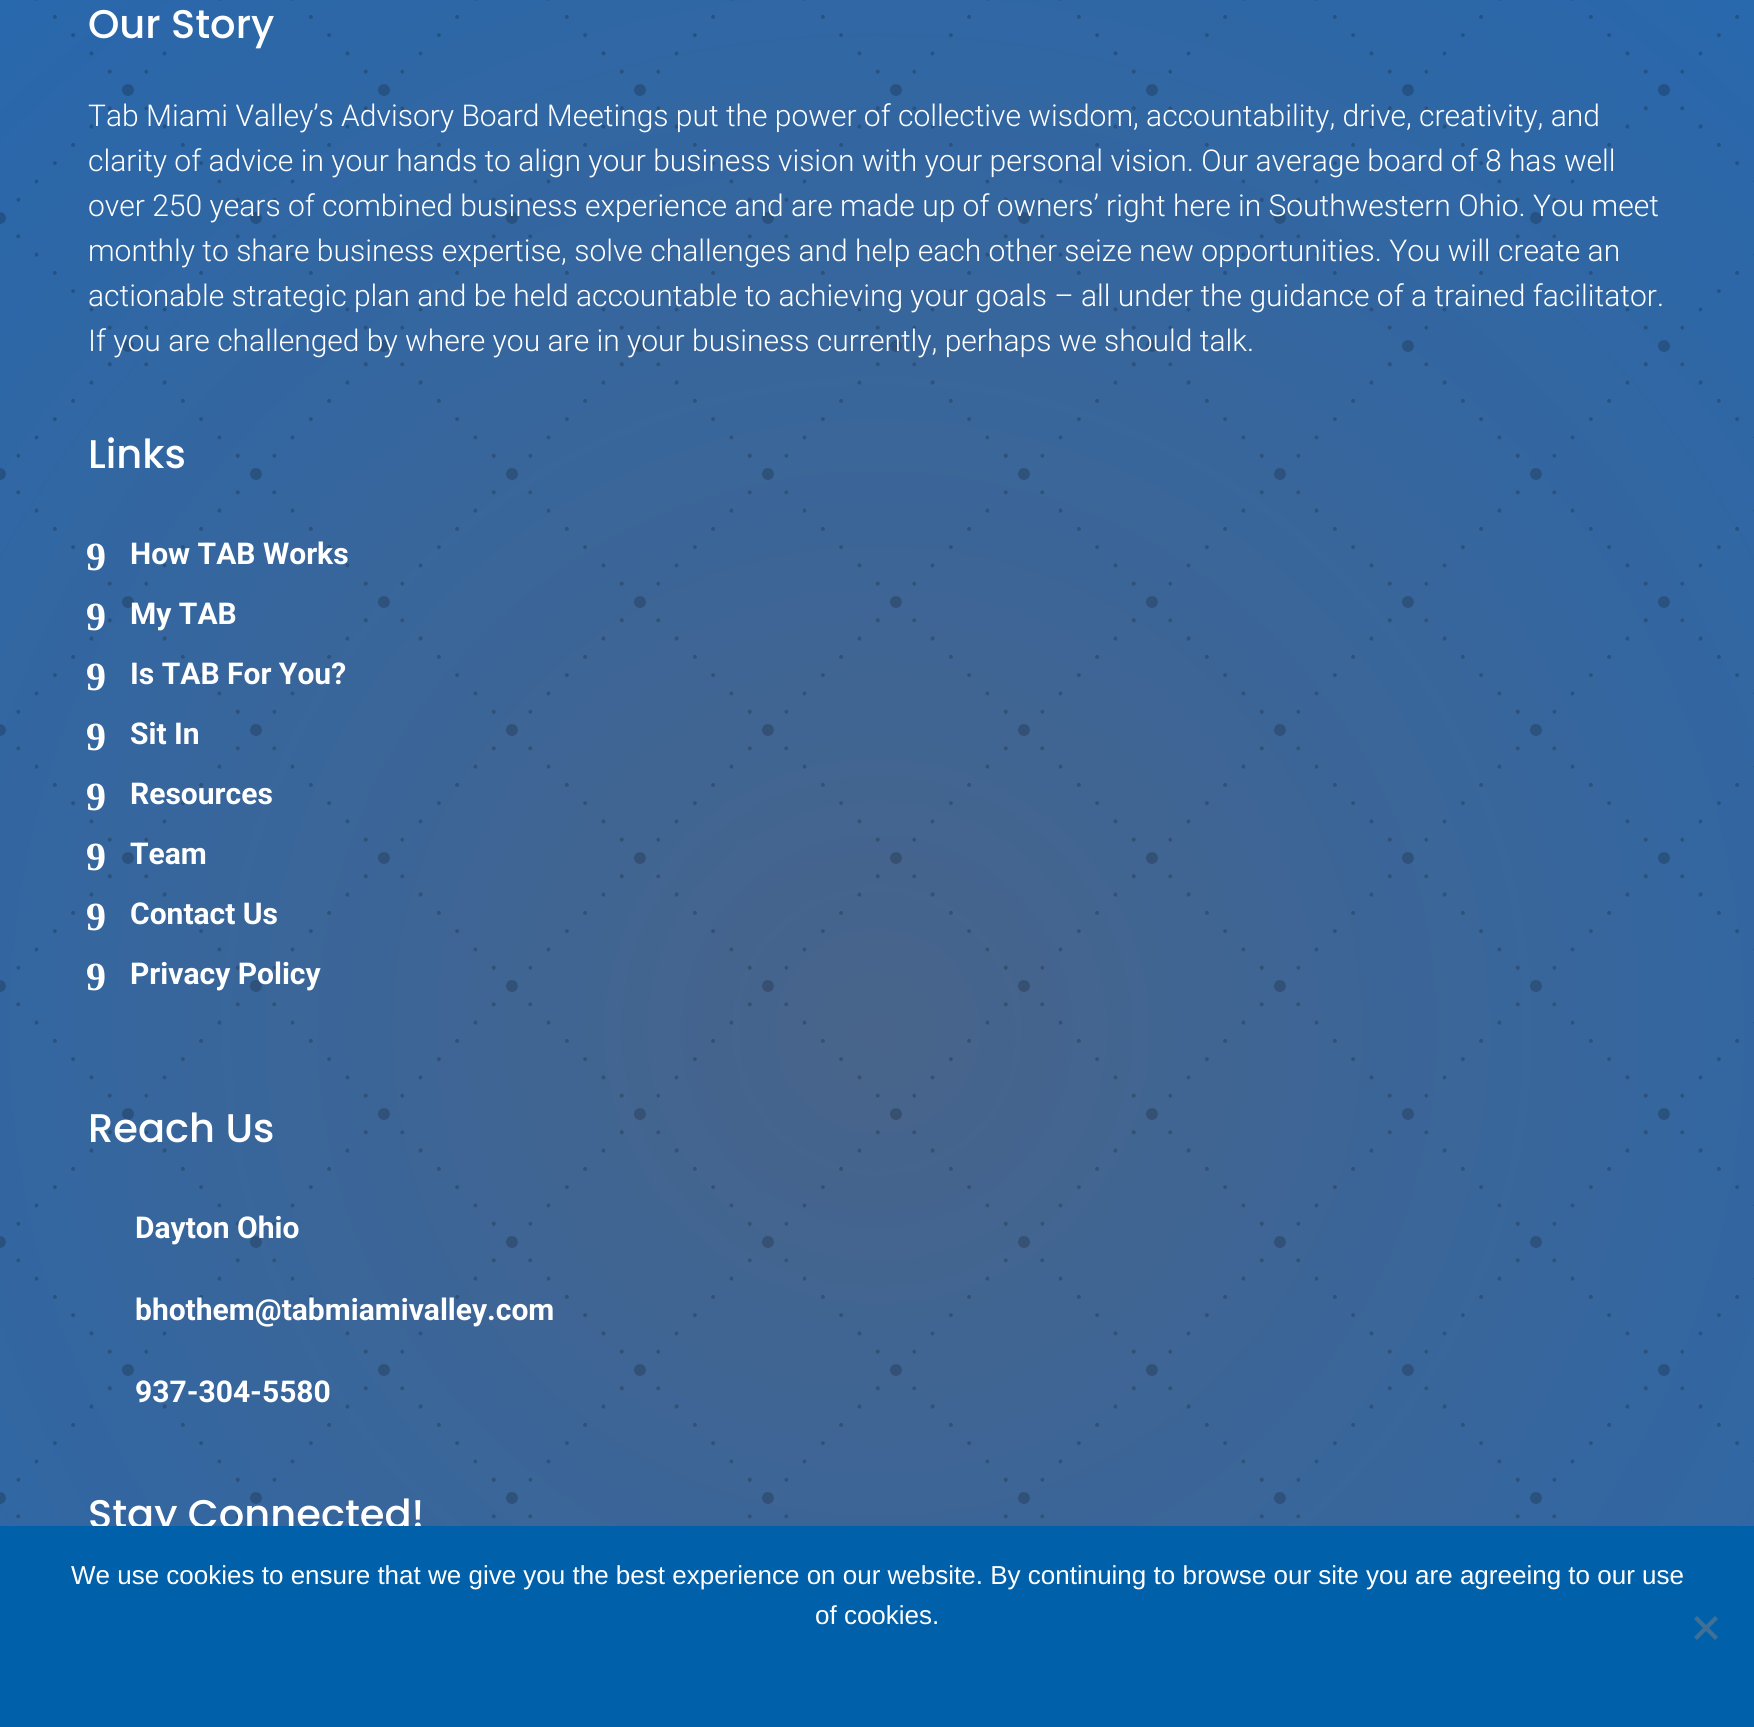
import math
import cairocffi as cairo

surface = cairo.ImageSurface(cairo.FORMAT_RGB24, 1754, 1727)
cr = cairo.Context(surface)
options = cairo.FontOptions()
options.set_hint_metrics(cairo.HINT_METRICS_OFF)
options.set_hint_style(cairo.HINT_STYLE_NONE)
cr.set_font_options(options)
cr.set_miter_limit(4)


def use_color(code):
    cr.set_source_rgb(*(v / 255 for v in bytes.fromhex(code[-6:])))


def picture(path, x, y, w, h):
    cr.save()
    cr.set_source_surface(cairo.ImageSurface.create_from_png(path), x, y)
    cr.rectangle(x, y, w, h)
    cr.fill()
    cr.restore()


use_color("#ffffff")
cr.paint()
gradient = cairo.RadialGradient(877, 1031, 0, 877, 1031, 1484)
gradient.add_color_stop_rgba(0, 0.282, 0.392, 0.541, 1)
gradient.add_color_stop_rgba(1, 0.145, 0.408, 0.69, 1)
cr.set_source(gradient)
cr.rectangle(0, 0, 1754, 1526)
cr.fill()
picture("img1.png", 0, 0, 1754, 1519)
cr.select_font_face("Poppins Medium")
cr.set_font_size(40)
use_color("#ffffff")
cr.move_to(88, 38)
cr.show_text("Our Story")
cr.select_font_face("Roboto Light")
cr.set_font_size(30)
cr.move_to(88, 126)
cr.show_text("Tab Miami Valley’s Advisory Board Meetings put the power of collective wisdom, accountability, drive, creativity, and")
cr.move_to(88, 171)
cr.show_text("clarity of advice in your hands to align your business vision with your personal vision. Our average board of 8 has well")
cr.move_to(88, 216)
cr.show_text("over 250 years of combined business experience and are made up of owners’ right here in Southwestern Ohio. You meet")
cr.move_to(88, 261)
cr.show_text("monthly to share business expertise, solve challenges and help each other seize new opportunities. You will create an")
cr.move_to(88, 306)
cr.show_text("actionable strategic plan and be held accountable to achieving your goals – all under the guidance of a trained facilitator.")
cr.move_to(88, 351)
cr.show_text("If you are challenged by where you are in your business currently, perhaps we should talk.")
cr.select_font_face("Poppins Medium")
cr.set_font_size(40)
cr.move_to(88, 468)
cr.show_text("Links")
cr.select_font_face("Liberation Serif", cairo.FONT_SLANT_NORMAL, cairo.FONT_WEIGHT_BOLD)
cr.move_to(86, 570)
cr.show_text("9")
cr.select_font_face("Roboto", cairo.FONT_SLANT_NORMAL, cairo.FONT_WEIGHT_BOLD)
cr.set_font_size(30)
cr.move_to(130, 564)
cr.show_text("How TAB Works")
cr.select_font_face("Liberation Serif", cairo.FONT_SLANT_NORMAL, cairo.FONT_WEIGHT_BOLD)
cr.set_font_size(40)
cr.move_to(86, 630)
cr.show_text("9")
cr.select_font_face("Roboto", cairo.FONT_SLANT_NORMAL, cairo.FONT_WEIGHT_BOLD)
cr.set_font_size(30)
cr.move_to(130, 624)
cr.show_text("My TAB")
cr.select_font_face("Liberation Serif", cairo.FONT_SLANT_NORMAL, cairo.FONT_WEIGHT_BOLD)
cr.set_font_size(40)
cr.move_to(86, 690)
cr.show_text("9")
cr.select_font_face("Roboto", cairo.FONT_SLANT_NORMAL, cairo.FONT_WEIGHT_BOLD)
cr.set_font_size(30)
cr.move_to(130, 684)
cr.show_text("Is TAB For You?")
cr.select_font_face("Liberation Serif", cairo.FONT_SLANT_NORMAL, cairo.FONT_WEIGHT_BOLD)
cr.set_font_size(40)
cr.move_to(86, 750)
cr.show_text("9")
cr.select_font_face("Roboto", cairo.FONT_SLANT_NORMAL, cairo.FONT_WEIGHT_BOLD)
cr.set_font_size(30)
cr.move_to(130, 744)
cr.show_text("Sit In")
cr.select_font_face("Liberation Serif", cairo.FONT_SLANT_NORMAL, cairo.FONT_WEIGHT_BOLD)
cr.set_font_size(40)
cr.move_to(86, 810)
cr.show_text("9")
cr.select_font_face("Roboto", cairo.FONT_SLANT_NORMAL, cairo.FONT_WEIGHT_BOLD)
cr.set_font_size(30)
cr.move_to(130, 804)
cr.show_text("Resources")
cr.select_font_face("Liberation Serif", cairo.FONT_SLANT_NORMAL, cairo.FONT_WEIGHT_BOLD)
cr.set_font_size(40)
cr.move_to(86, 870)
cr.show_text("9")
cr.select_font_face("Roboto", cairo.FONT_SLANT_NORMAL, cairo.FONT_WEIGHT_BOLD)
cr.set_font_size(30)
cr.move_to(130, 864)
cr.show_text("Team")
cr.select_font_face("Liberation Serif", cairo.FONT_SLANT_NORMAL, cairo.FONT_WEIGHT_BOLD)
cr.set_font_size(40)
cr.move_to(86, 930)
cr.show_text("9")
cr.select_font_face("Roboto", cairo.FONT_SLANT_NORMAL, cairo.FONT_WEIGHT_BOLD)
cr.set_font_size(30)
cr.move_to(130, 924)
cr.show_text("Contact Us")
cr.select_font_face("Liberation Serif", cairo.FONT_SLANT_NORMAL, cairo.FONT_WEIGHT_BOLD)
cr.set_font_size(40)
cr.move_to(86, 990)
cr.show_text("9")
cr.select_font_face("Roboto", cairo.FONT_SLANT_NORMAL, cairo.FONT_WEIGHT_BOLD)
cr.set_font_size(30)
cr.move_to(130, 984)
cr.show_text("Privacy Policy")
cr.select_font_face("Poppins Medium")
cr.set_font_size(40)
cr.move_to(88, 1142)
cr.show_text("Reach Us")
cr.select_font_face("Roboto", cairo.FONT_SLANT_NORMAL, cairo.FONT_WEIGHT_BOLD)
cr.set_font_size(30)
cr.move_to(135, 1238)
cr.show_text("Dayton Ohio")
cr.move_to(135, 1320)
cr.show_text("bhothem@tabmiamivalley.com")
cr.move_to(135, 1402)
cr.show_text("937-304-5580")
cr.select_font_face("Poppins Medium")
cr.set_font_size(40)
cr.move_to(88, 1528)
cr.show_text("Stay Connected!")
use_color("#0060aa")
cr.rectangle(0, 1526, 1754, 201)
cr.fill()
cr.select_font_face("Liberation Sans")
cr.set_font_size(26)
use_color("#ffffff")
cr.move_to(71, 1584)
cr.show_text("We use cookies to ensure that we give you the best experience on our website. By continuing to browse our site you are agreeing to our use")
cr.move_to(815, 1624)
cr.show_text("of cookies.")
use_color("#407095")
cr.new_path()
cr.move_to(1715, 1616)
cr.line_to(1718, 1619)
cr.line_to(1697, 1640)
cr.line_to(1694, 1637)
cr.close_path()
cr.fill()
cr.new_path()
cr.move_to(1694, 1619)
cr.line_to(1697, 1616)
cr.line_to(1718, 1637)
cr.line_to(1715, 1640)
cr.close_path()
cr.fill()
surface.write_to_png("result.png")
